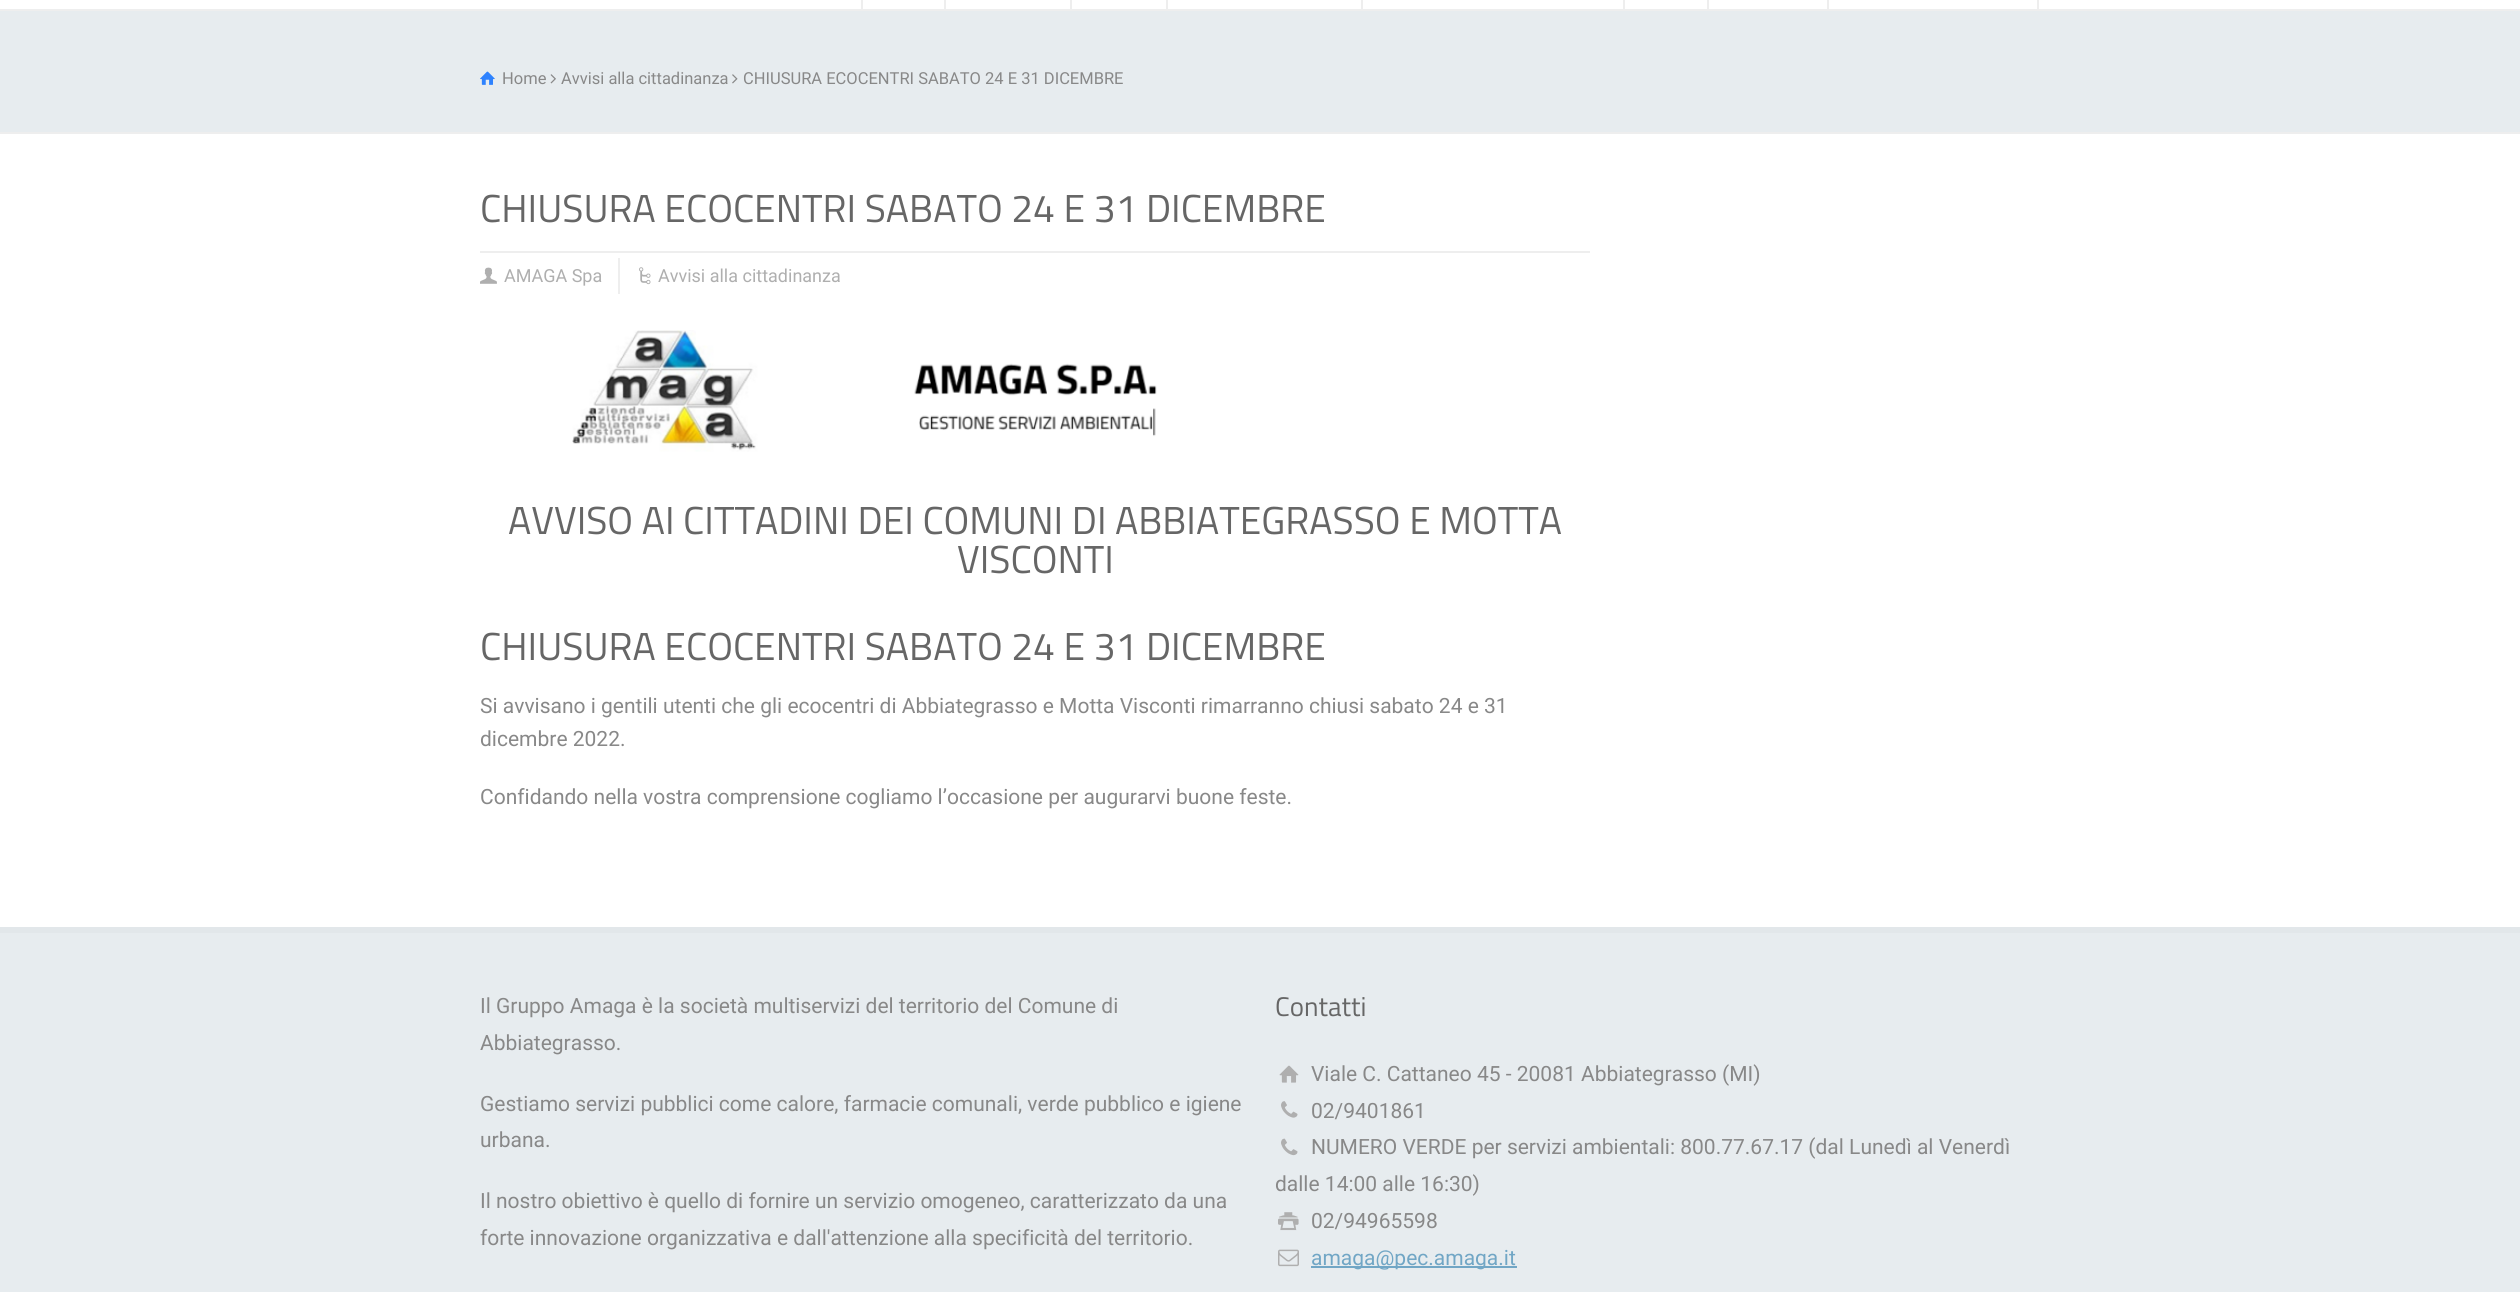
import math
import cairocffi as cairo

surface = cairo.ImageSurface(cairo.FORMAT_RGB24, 2520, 1292)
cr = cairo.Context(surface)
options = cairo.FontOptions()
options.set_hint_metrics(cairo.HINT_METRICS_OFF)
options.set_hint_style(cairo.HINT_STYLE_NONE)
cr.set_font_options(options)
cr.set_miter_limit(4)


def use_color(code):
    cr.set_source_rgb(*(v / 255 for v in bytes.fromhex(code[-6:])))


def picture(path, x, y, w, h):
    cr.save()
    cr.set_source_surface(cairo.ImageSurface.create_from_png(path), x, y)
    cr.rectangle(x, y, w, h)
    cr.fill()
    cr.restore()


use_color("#ffffff")
cr.paint()
use_color("#eeeeee")
cr.rectangle(944, 0, 2, 9)
cr.fill()
cr.rectangle(861, 0, 2, 9)
cr.fill()
cr.rectangle(1070, 0, 2, 9)
cr.fill()
cr.rectangle(1166, 0, 2, 9)
cr.fill()
cr.rectangle(1361, 0, 2, 9)
cr.fill()
cr.rectangle(1623, 0, 2, 9)
cr.fill()
cr.rectangle(1707, 0, 2, 9)
cr.fill()
cr.rectangle(1827, 0, 2, 9)
cr.fill()
cr.rectangle(2037, 0, 2, 9)
cr.fill()
use_color("#e7ecef")
cr.rectangle(0, 11, 2520, 121)
cr.fill()
use_color("#eeeeee")
cr.rectangle(0, 9, 2520, 2)
cr.fill()
cr.rectangle(0, 132, 2520, 2)
cr.fill()
picture("img1.png", 480, 71, 15, 14)
cr.select_font_face("Roboto")
cr.set_font_size(16.5)
use_color("#888888")
cr.move_to(502, 84)
cr.show_text("Home")
picture("img2.png", 550, 74, 6, 10)
cr.move_to(561, 84)
cr.show_text("Avvisi alla cittadinanza")
picture("img3.png", 732, 74, 6, 10)
cr.move_to(743, 84)
cr.show_text("CHIUSURA ECOCENTRI SABATO 24 E 31 DICEMBRE")
cr.select_font_face("Titillium Web")
cr.set_font_size(39)
use_color("#666666")
cr.move_to(480, 222)
cr.show_text("CHIUSURA ECOCENTRI SABATO 24 E 31 DICEMBRE")
use_color("#eeeeee")
cr.rectangle(480, 251, 1110, 2)
cr.fill()
cr.rectangle(618, 258, 2, 36)
cr.fill()
picture("img4.png", 480, 267, 17, 17)
cr.select_font_face("Roboto")
cr.set_font_size(18)
use_color("#afafaf")
cr.move_to(504, 282)
cr.show_text("AMAGA Spa")
picture("img5.png", 639, 267, 12, 18)
cr.move_to(658, 282)
cr.show_text("Avvisi alla cittadinanza")
picture("img6.png", 572, 330, 585, 122)
cr.select_font_face("Titillium Web")
cr.set_font_size(39)
use_color("#666666")
cr.move_to(508, 534)
cr.show_text("AVVISO AI CITTADINI DEI COMUNI DI ABBIATEGRASSO E MOTTA")
cr.move_to(957, 573)
cr.show_text("VISCONTI")
cr.move_to(480, 660)
cr.show_text("CHIUSURA ECOCENTRI SABATO 24 E 31 DICEMBRE")
cr.select_font_face("Roboto")
cr.set_font_size(21)
use_color("#888888")
cr.move_to(480, 713)
cr.show_text("Si avvisano i gentili utenti che gli ecocentri di Abbiategrasso e Motta Visconti rimarranno chiusi sabato 24 e 31")
cr.move_to(480, 746)
cr.show_text("dicembre 2022.")
cr.move_to(480, 804)
cr.show_text("Confidando nella vostra comprensione cogliamo l’occasione per augurarvi buone feste.")
use_color("#e7ecef")
cr.rectangle(0, 933, 2520, 359)
cr.fill()
use_color("#e2e7ea")
cr.rectangle(0, 927, 2520, 6)
cr.fill()
use_color("#888888")
cr.move_to(480, 1013)
cr.show_text("Il Gruppo Amaga è la società multiservizi del territorio del Comune di")
cr.move_to(480, 1050)
cr.show_text("Abbiategrasso.")
cr.move_to(480, 1111)
cr.show_text("Gestiamo servizi pubblici come calore, farmacie comunali, verde pubblico e igiene")
cr.move_to(480, 1147)
cr.show_text("urbana.")
cr.move_to(480, 1208)
cr.show_text("Il nostro obiettivo è quello di fornire un servizio omogeneo, caratterizzato da una")
cr.move_to(480, 1245)
cr.show_text("forte innovazione organizzativa e dall'attenzione alla specificità del territorio.")
cr.select_font_face("Titillium Web")
cr.set_font_size(27)
use_color("#666666")
cr.move_to(1275, 1016)
cr.show_text("Contatti")
picture("img7.png", 1279, 1065, 20, 18)
cr.select_font_face("Roboto")
cr.set_font_size(21)
use_color("#888888")
cr.move_to(1311, 1081)
cr.show_text("Viale C. Cattaneo 45 - 20081 Abbiategrasso (MI)")
picture("img8.png", 1281, 1101, 17, 17)
cr.move_to(1311, 1118)
cr.show_text("02/9401861")
picture("img9.png", 1281, 1138, 17, 18)
cr.move_to(1311, 1154)
cr.show_text("NUMERO VERDE per servizi ambientali: 800.77.67.17 (dal Lunedì al Venerdì")
cr.move_to(1275, 1191)
cr.show_text("dalle 14:00 alle 16:30)")
picture("img10.png", 1278, 1212, 21, 19)
cr.move_to(1311, 1228)
cr.show_text("02/94965598")
picture("img11.png", 1278, 1249, 21, 18)
use_color("#71a6c5")
cr.rectangle(1311, 1266, 206, 2)
cr.fill()
cr.move_to(1311, 1265)
cr.show_text("amaga@pec.amaga.it")
surface.write_to_png("result.png")
